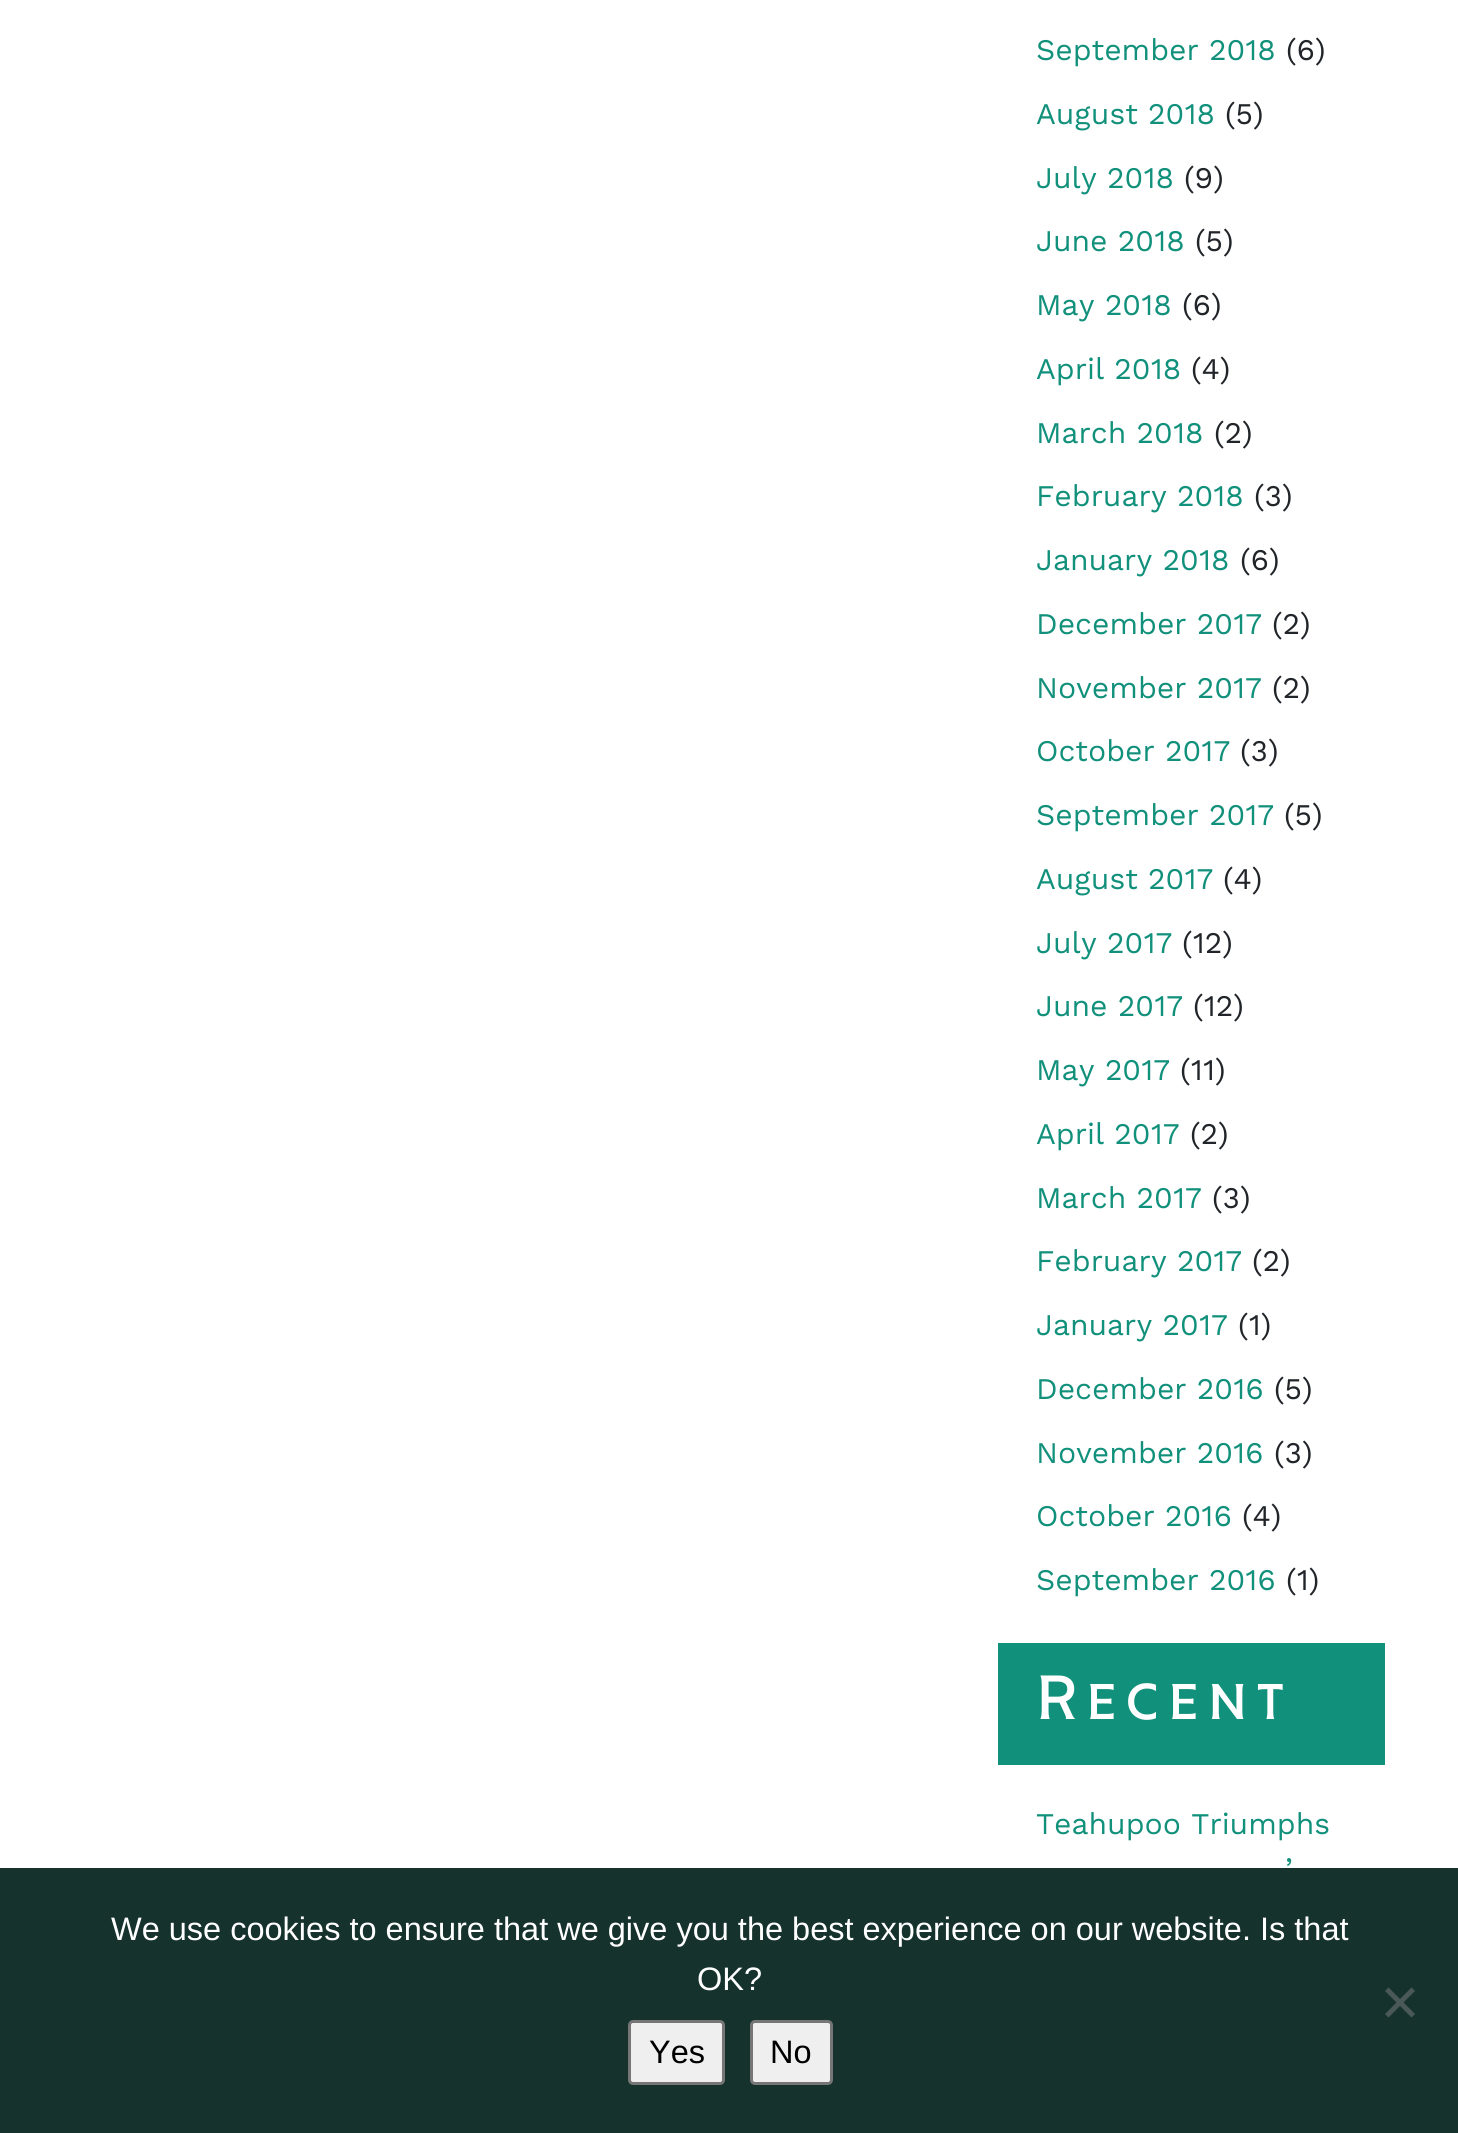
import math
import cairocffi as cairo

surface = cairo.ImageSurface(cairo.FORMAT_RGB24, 1458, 2133)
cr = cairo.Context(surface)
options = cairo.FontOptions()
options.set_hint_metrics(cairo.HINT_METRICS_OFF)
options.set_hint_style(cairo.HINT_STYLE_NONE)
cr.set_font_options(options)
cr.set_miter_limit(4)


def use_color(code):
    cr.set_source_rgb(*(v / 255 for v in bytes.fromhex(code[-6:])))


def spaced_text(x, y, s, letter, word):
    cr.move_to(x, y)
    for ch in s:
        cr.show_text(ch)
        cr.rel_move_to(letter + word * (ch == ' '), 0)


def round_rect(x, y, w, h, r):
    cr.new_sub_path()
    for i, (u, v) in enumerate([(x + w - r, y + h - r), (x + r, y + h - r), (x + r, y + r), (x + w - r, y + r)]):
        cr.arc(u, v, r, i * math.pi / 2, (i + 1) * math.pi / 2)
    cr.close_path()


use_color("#ffffff")
cr.paint()
cr.select_font_face("Work Sans")
cr.set_font_size(30)
use_color("#11907b")
cr.move_to(1036, 60)
cr.show_text("September 2018")
use_color("#212529")
cr.move_to(1286, 60)
cr.show_text("(6)")
use_color("#11907b")
cr.move_to(1036, 124)
cr.show_text("August 2018")
use_color("#212529")
cr.move_to(1225, 124)
cr.show_text("(5)")
use_color("#11907b")
cr.move_to(1036, 188)
cr.show_text("July 2018")
use_color("#212529")
cr.move_to(1184, 188)
cr.show_text("(9)")
use_color("#11907b")
cr.move_to(1036, 251)
cr.show_text("June 2018")
use_color("#212529")
cr.move_to(1195, 251)
cr.show_text("(5)")
use_color("#11907b")
cr.move_to(1036, 315)
cr.show_text("May 2018")
use_color("#212529")
cr.move_to(1182, 315)
cr.show_text("(6)")
use_color("#11907b")
cr.move_to(1036, 379)
cr.show_text("April 2018")
use_color("#212529")
cr.move_to(1191, 379)
cr.show_text("(4)")
use_color("#11907b")
cr.move_to(1036, 443)
cr.show_text("March 2018")
use_color("#212529")
cr.move_to(1214, 443)
cr.show_text("(2)")
use_color("#11907b")
cr.move_to(1036, 506)
cr.show_text("February 2018")
use_color("#212529")
cr.move_to(1254, 506)
cr.show_text("(3)")
use_color("#11907b")
cr.move_to(1036, 570)
cr.show_text("January 2018")
use_color("#212529")
cr.move_to(1240, 570)
cr.show_text("(6)")
use_color("#11907b")
cr.move_to(1036, 634)
cr.show_text("December 2017")
use_color("#212529")
cr.move_to(1272, 634)
cr.show_text("(2)")
use_color("#11907b")
cr.move_to(1036, 698)
cr.show_text("November 2017")
use_color("#212529")
cr.move_to(1272, 698)
cr.show_text("(2)")
use_color("#11907b")
cr.move_to(1036, 761)
cr.show_text("October 2017")
use_color("#212529")
cr.move_to(1240, 761)
cr.show_text("(3)")
use_color("#11907b")
cr.move_to(1036, 825)
cr.show_text("September 2017")
use_color("#212529")
cr.move_to(1284, 825)
cr.show_text("(5)")
use_color("#11907b")
cr.move_to(1036, 889)
cr.show_text("August 2017")
use_color("#212529")
cr.move_to(1223, 889)
cr.show_text("(4)")
use_color("#11907b")
cr.move_to(1036, 953)
cr.show_text("July 2017")
use_color("#212529")
cr.move_to(1182, 953)
cr.show_text("(12)")
use_color("#11907b")
cr.move_to(1036, 1016)
cr.show_text("June 2017")
use_color("#212529")
cr.move_to(1193, 1016)
cr.show_text("(12)")
use_color("#11907b")
cr.move_to(1036, 1080)
cr.show_text("May 2017")
use_color("#212529")
cr.move_to(1180, 1080)
cr.show_text("(11)")
use_color("#11907b")
cr.move_to(1036, 1144)
cr.show_text("April 2017")
use_color("#212529")
cr.move_to(1190, 1144)
cr.show_text("(2)")
use_color("#11907b")
cr.move_to(1036, 1208)
cr.show_text("March 2017")
use_color("#212529")
cr.move_to(1212, 1208)
cr.show_text("(3)")
use_color("#11907b")
cr.move_to(1036, 1271)
cr.show_text("February 2017")
use_color("#212529")
cr.move_to(1252, 1271)
cr.show_text("(2)")
use_color("#11907b")
cr.move_to(1036, 1335)
cr.show_text("January 2017")
use_color("#212529")
cr.move_to(1238, 1335)
cr.show_text("(1)")
use_color("#11907b")
cr.move_to(1036, 1399)
cr.show_text("December 2016")
use_color("#212529")
cr.move_to(1274, 1399)
cr.show_text("(5)")
use_color("#11907b")
cr.move_to(1036, 1463)
cr.show_text("November 2016")
use_color("#212529")
cr.move_to(1274, 1463)
cr.show_text("(3)")
use_color("#11907b")
cr.move_to(1036, 1526)
cr.show_text("October 2016")
use_color("#212529")
cr.move_to(1242, 1526)
cr.show_text("(4)")
use_color("#11907b")
cr.move_to(1036, 1590)
cr.show_text("September 2016")
use_color("#212529")
cr.move_to(1286, 1590)
cr.show_text("(1)")
use_color("#11907b")
cr.rectangle(998, 1643, 387, 122)
cr.fill()
cr.select_font_face("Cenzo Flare")
cr.set_font_size(70)
use_color("#ffffff")
spaced_text(1036, 1719, "Recent", 7.5, 0)
cr.select_font_face("Work Sans")
cr.set_font_size(30)
use_color("#11907b")
cr.move_to(1036, 1834)
cr.show_text("Teahupoo Triumphs")
cr.move_to(1285, 1879)
cr.show_text("’")
use_color("#15322c")
cr.rectangle(0, 1868, 1458, 265)
cr.fill()
cr.select_font_face("Liberation Sans")
cr.set_font_size(32.5)
use_color("#ffffff")
cr.move_to(111, 1940)
cr.show_text("We use cookies to ensure that we give you the best experience on our website. Is that")
cr.move_to(697, 1990)
cr.show_text("OK?")
use_color("#4b5956")
cr.new_path()
cr.move_to(1411.5, 1987.5)
cr.line_to(1415, 1991)
cr.line_to(1388.5, 2017.5)
cr.line_to(1385, 2014)
cr.close_path()
cr.fill()
cr.new_path()
cr.move_to(1385, 1991)
cr.line_to(1388.5, 1987.5)
cr.line_to(1415, 2014)
cr.line_to(1411.5, 2017.5)
cr.close_path()
cr.fill()
use_color("#efefef")
round_rect(629.5, 2021.5, 94, 62, 3.5)
cr.fill_preserve()
use_color("#767676")
cr.set_line_width(3)
cr.stroke()
use_color("#000000")
cr.move_to(649, 2063)
cr.show_text("Yes")
use_color("#efefef")
round_rect(751.5, 2021.5, 80, 62, 3.5)
cr.fill_preserve()
use_color("#767676")
cr.stroke()
use_color("#000000")
cr.move_to(770, 2063)
cr.show_text("No")
surface.write_to_png("result.png")
